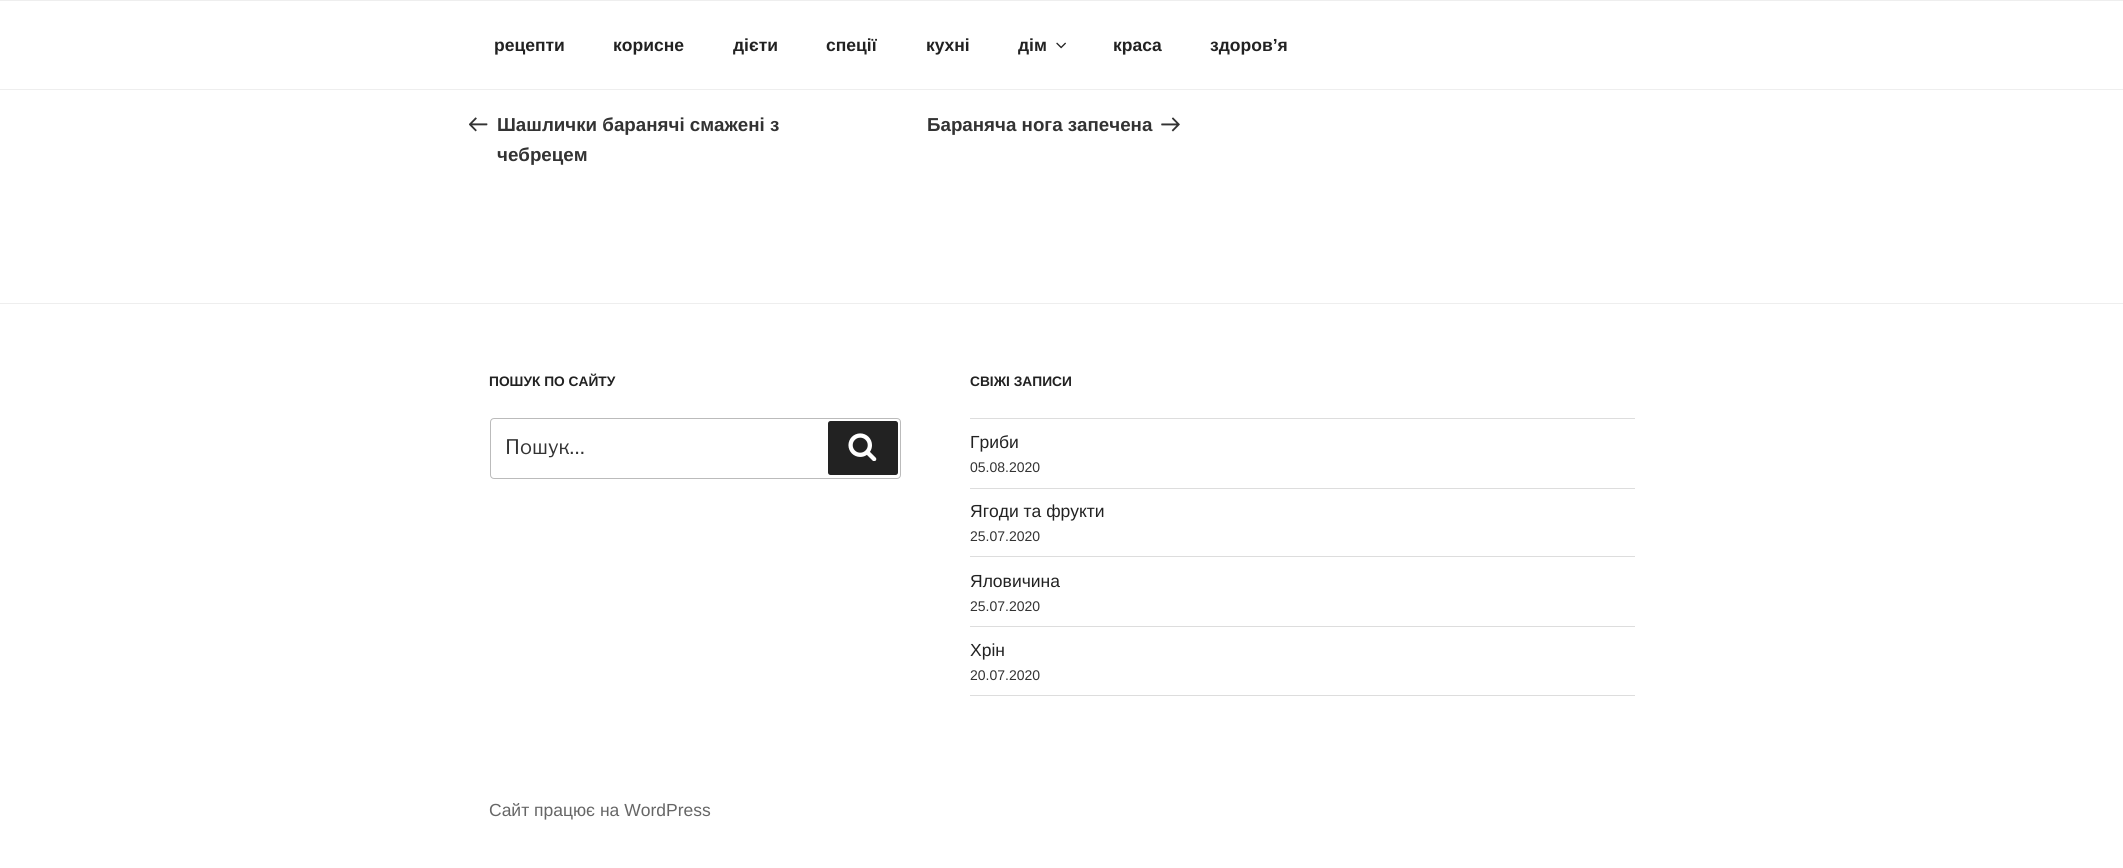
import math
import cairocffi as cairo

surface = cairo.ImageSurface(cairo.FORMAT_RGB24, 2123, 868)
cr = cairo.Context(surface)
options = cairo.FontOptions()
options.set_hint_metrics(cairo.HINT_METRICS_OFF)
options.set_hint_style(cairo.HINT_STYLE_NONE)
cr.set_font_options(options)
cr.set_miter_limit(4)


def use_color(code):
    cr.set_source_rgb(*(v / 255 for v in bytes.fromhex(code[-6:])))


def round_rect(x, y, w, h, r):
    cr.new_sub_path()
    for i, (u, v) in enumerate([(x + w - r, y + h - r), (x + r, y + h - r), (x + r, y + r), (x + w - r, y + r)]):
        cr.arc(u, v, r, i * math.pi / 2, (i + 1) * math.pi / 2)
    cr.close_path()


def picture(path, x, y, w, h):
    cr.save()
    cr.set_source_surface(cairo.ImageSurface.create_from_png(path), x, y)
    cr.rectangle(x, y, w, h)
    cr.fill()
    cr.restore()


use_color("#ffffff")
cr.paint()
use_color("#eeeeee")
cr.rectangle(0, 0, 2123, 1)
cr.fill()
cr.rectangle(0, 89, 2123, 1)
cr.fill()
cr.select_font_face("Liberation Sans", cairo.FONT_SLANT_NORMAL, cairo.FONT_WEIGHT_BOLD)
cr.set_font_size(17.5)
use_color("#222222")
cr.move_to(494, 51)
cr.show_text("рецепти")
cr.move_to(613, 51)
cr.show_text("корисне")
cr.move_to(733, 51)
cr.show_text("дієти")
cr.move_to(826, 51)
cr.show_text("спеції")
cr.move_to(926, 51)
cr.show_text("кухні")
cr.move_to(1018, 51)
cr.show_text("дім")
picture("img1.png", 1056, 42, 10, 7)
cr.move_to(1113, 51)
cr.show_text("краса")
cr.move_to(1210, 51)
cr.show_text("здоров’я")
picture("img2.png", 469, 117, 19, 15)
cr.set_font_size(18.75)
use_color("#333333")
cr.move_to(497, 131)
cr.show_text("Шашлички баранячі смажені з")
cr.move_to(497, 161)
cr.show_text("чебрецем")
cr.move_to(927, 131)
cr.show_text("Бараняча нога запечена")
picture("img3.png", 1161, 117, 19, 15)
use_color("#eeeeee")
cr.rectangle(0, 303, 2123, 1)
cr.fill()
cr.set_font_size(13.75)
use_color("#222222")
cr.move_to(489, 386)
cr.show_text("ПОШУК ПО САЙТУ")
round_rect(490.5, 418.5, 410, 60, 3.5)
use_color("#bbbbbb")
cr.set_line_width(1)
cr.stroke()
cr.select_font_face("Libre Franklin")
cr.set_font_size(20)
use_color("#333333")
cr.move_to(505, 454)
cr.show_text("Пошук…")
use_color("#222222")
round_rect(828, 421, 70, 54, 2.5)
cr.fill()
picture("img4.png", 848, 433, 29, 28)
cr.select_font_face("Liberation Sans", cairo.FONT_SLANT_NORMAL, cairo.FONT_WEIGHT_BOLD)
cr.set_font_size(13.75)
cr.move_to(970, 386)
cr.show_text("СВІЖІ ЗАПИСИ")
use_color("#dddddd")
cr.rectangle(970, 418, 665, 1)
cr.fill()
cr.rectangle(970, 488, 665, 1)
cr.fill()
cr.select_font_face("Liberation Sans")
cr.set_font_size(17.5)
use_color("#222222")
cr.move_to(970, 448)
cr.show_text("Гриби")
cr.set_font_size(14)
use_color("#333333")
cr.move_to(970, 472)
cr.show_text("05.08.2020")
use_color("#dddddd")
cr.rectangle(970, 556, 665, 1)
cr.fill()
cr.set_font_size(17.5)
use_color("#222222")
cr.move_to(970, 517)
cr.show_text("Ягоди та фрукти")
cr.set_font_size(14)
use_color("#333333")
cr.move_to(970, 541)
cr.show_text("25.07.2020")
use_color("#dddddd")
cr.rectangle(970, 626, 665, 1)
cr.fill()
cr.set_font_size(17.5)
use_color("#222222")
cr.move_to(970, 587)
cr.show_text("Яловичина")
cr.set_font_size(14)
use_color("#333333")
cr.move_to(970, 611)
cr.show_text("25.07.2020")
use_color("#dddddd")
cr.rectangle(970, 695, 665, 1)
cr.fill()
cr.set_font_size(17.5)
use_color("#222222")
cr.move_to(970, 656)
cr.show_text("Хрін")
cr.set_font_size(14)
use_color("#333333")
cr.move_to(970, 680)
cr.show_text("20.07.2020")
cr.set_font_size(17.5)
use_color("#666666")
cr.move_to(489, 816)
cr.show_text("Сайт працює на WordPress")
surface.write_to_png("result.png")
